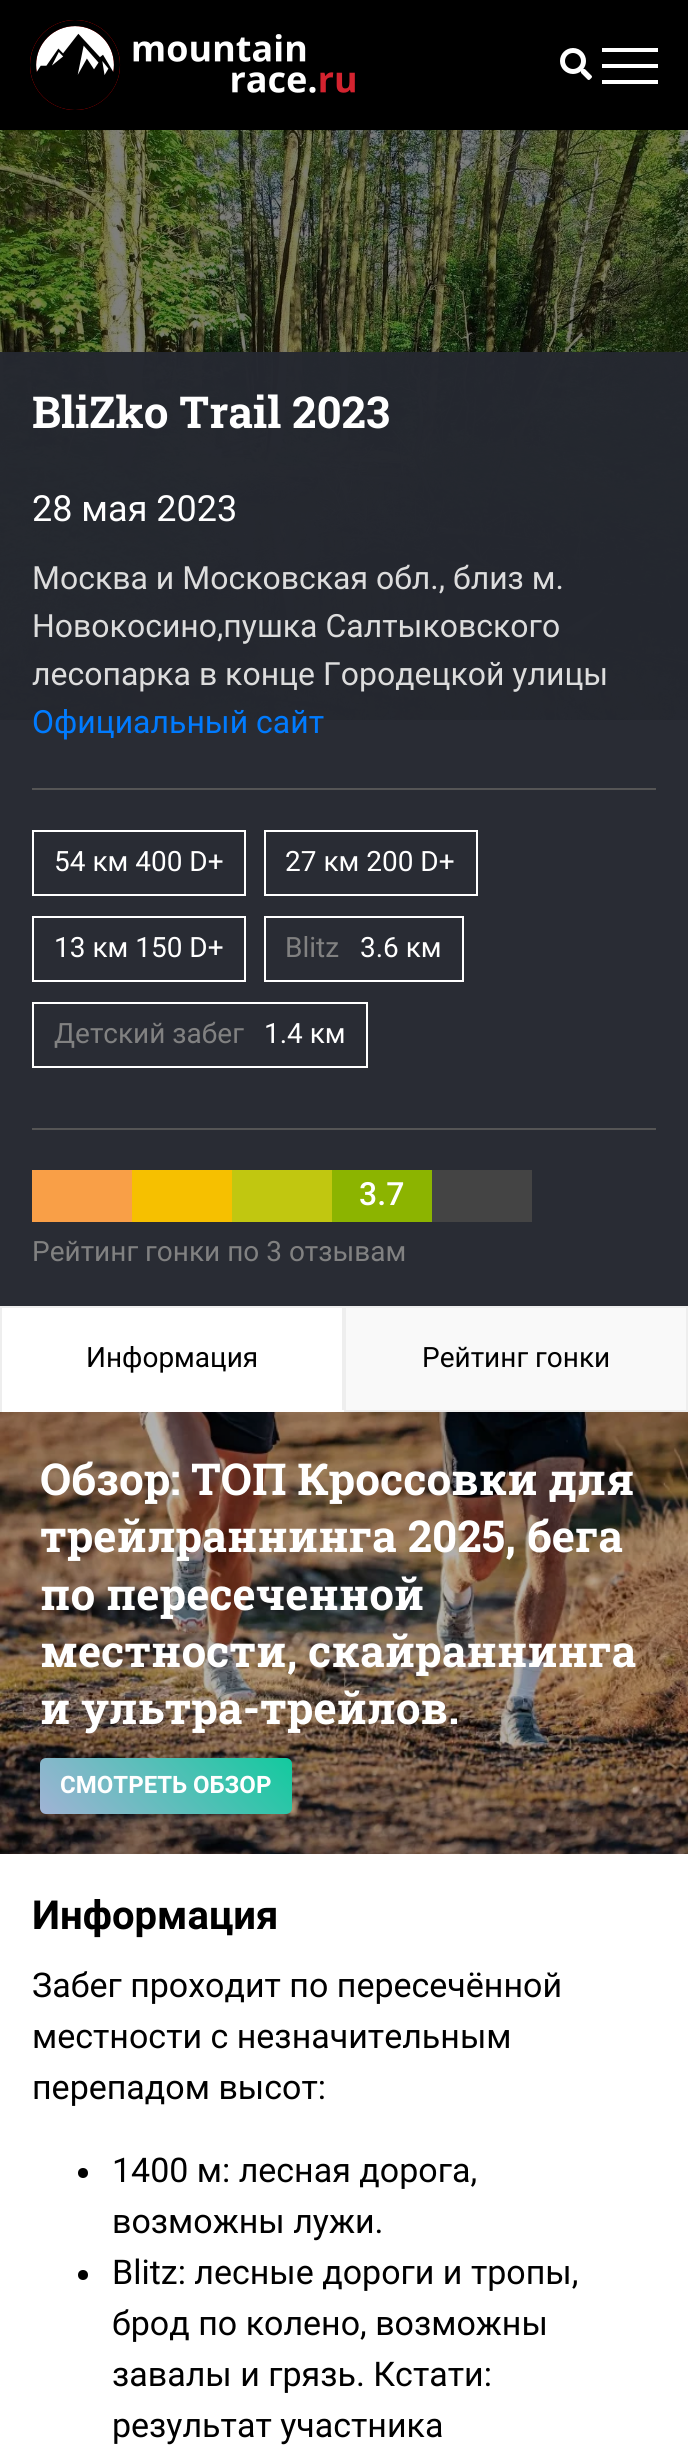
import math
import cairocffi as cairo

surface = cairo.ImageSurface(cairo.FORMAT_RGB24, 688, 2459)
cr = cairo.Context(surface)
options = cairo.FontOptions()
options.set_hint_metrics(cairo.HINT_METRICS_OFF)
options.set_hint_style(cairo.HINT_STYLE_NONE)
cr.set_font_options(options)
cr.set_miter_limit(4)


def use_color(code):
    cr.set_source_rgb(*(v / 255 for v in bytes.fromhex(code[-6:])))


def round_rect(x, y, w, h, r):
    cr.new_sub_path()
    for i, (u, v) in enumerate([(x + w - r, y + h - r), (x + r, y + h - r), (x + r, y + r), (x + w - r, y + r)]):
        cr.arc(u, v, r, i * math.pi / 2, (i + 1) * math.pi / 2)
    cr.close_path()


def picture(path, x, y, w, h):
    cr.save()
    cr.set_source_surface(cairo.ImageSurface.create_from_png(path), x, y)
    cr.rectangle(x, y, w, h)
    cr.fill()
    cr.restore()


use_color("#eeeeee")
cr.paint()
use_color("#000000")
cr.rectangle(0, 0, 688, 130)
cr.fill()
picture("img1.png", 30, 20, 325, 90)
picture("img2.png", 560, 48, 32, 32)
use_color("#ffffff")
cr.rectangle(602, 64, 56, 4)
cr.fill()
cr.rectangle(602, 48, 56, 4)
cr.fill()
cr.rectangle(602, 80, 56, 4)
cr.fill()
picture("img3.png", 0, 130, 688, 590)
cr.set_source_rgba(0.145, 0.157, 0.188, 0.98)
cr.rectangle(0, 352, 688, 954)
cr.fill()
cr.select_font_face("Roboto Slab", cairo.FONT_SLANT_NORMAL, cairo.FONT_WEIGHT_BOLD)
cr.set_font_size(44)
use_color("#ffffff")
cr.move_to(32, 428)
cr.show_text("BliZko Trail 2023")
cr.select_font_face("Roboto")
cr.set_font_size(36)
cr.move_to(32, 521)
cr.show_text("28 мая 2023")
cr.set_font_size(32)
use_color("#dddddd")
cr.move_to(32, 589)
cr.show_text("Москва и Московская обл., близ м.")
cr.move_to(32, 637)
cr.show_text("Новокосино,пушка Салтыковского")
cr.move_to(32, 685)
cr.show_text("лесопарка в конце Городецкой улицы")
use_color("#007bff")
cr.move_to(32, 733)
cr.show_text("Официальный сайт")
use_color("#555555")
cr.rectangle(32, 788, 624, 2)
cr.fill()
cr.rectangle(32, 1128, 624, 2)
cr.fill()
cr.rectangle(33, 831, 212, 64)
use_color("#ffffff")
cr.stroke()
cr.set_font_size(28)
cr.move_to(54, 871)
cr.show_text("54 км 400 D+")
cr.rectangle(265, 831, 212, 64)
cr.stroke()
cr.move_to(285, 871)
cr.show_text("27 км 200 D+")
cr.rectangle(33, 917, 212, 64)
cr.stroke()
cr.move_to(54, 957)
cr.show_text("13 км 150 D+")
cr.rectangle(265, 917, 198, 64)
cr.stroke()
use_color("#818181")
cr.move_to(285, 957)
cr.show_text("Blitz")
use_color("#ffffff")
cr.move_to(360, 957)
cr.show_text("3.6 км")
cr.rectangle(33, 1003, 334, 64)
cr.stroke()
use_color("#818181")
cr.move_to(54, 1043)
cr.show_text("Детский забег")
use_color("#ffffff")
cr.move_to(264, 1043)
cr.show_text("1.4 км")
use_color("#444444")
cr.rectangle(432, 1170, 100, 52)
cr.fill()
use_color("#f99f47")
cr.rectangle(32, 1170, 100, 52)
cr.fill()
use_color("#f6c000")
cr.rectangle(132, 1170, 100, 52)
cr.fill()
use_color("#c1c710")
cr.rectangle(232, 1170, 100, 52)
cr.fill()
use_color("#8cb400")
cr.rectangle(332, 1170, 100, 52)
cr.fill()
cr.select_font_face("Roboto Medium")
cr.set_font_size(32)
use_color("#ffffff")
cr.move_to(359, 1205)
cr.show_text("3.7")
cr.select_font_face("Roboto")
cr.set_font_size(28)
use_color("#818181")
cr.move_to(32, 1261)
cr.show_text("Рейтинг гонки по 3 отзывам")
use_color("#ffffff")
cr.rectangle(2, 1308, 340, 102)
cr.fill()
cr.rectangle(0, 1410, 344, 2)
cr.fill()
use_color("#eeeeee")
cr.rectangle(0, 1410, 2, 2)
cr.fill()
use_color("#000000")
cr.move_to(86, 1367)
cr.show_text("Информация")
use_color("#f9f9f9")
cr.rectangle(346, 1308, 340, 102)
cr.fill()
use_color("#000000")
cr.move_to(422, 1367)
cr.show_text("Рейтинг гонки")
picture("img4.png", 0, 1412, 688, 442)
cr.select_font_face("Roboto Slab", cairo.FONT_SLANT_NORMAL, cairo.FONT_WEIGHT_BOLD)
cr.set_font_size(44)
use_color("#ffffff")
cr.move_to(40, 1495)
cr.show_text("Обзор: ТОП Кроссовки для")
cr.move_to(40, 1552)
cr.show_text("трейлраннинга 2025, бега")
cr.move_to(40, 1610)
cr.show_text("по пересеченной")
cr.move_to(40, 1667)
cr.show_text("местности, скайраннинга")
cr.move_to(40, 1724)
cr.show_text("и ультра-трейлов.")
gradient = cairo.LinearGradient(89, 1863, 243, 1709)
gradient.add_color_stop_rgba(0, 0.631, 0.702, 0.835, 1)
gradient.add_color_stop_rgba(1, 0.071, 0.792, 0.62, 1)
cr.set_source(gradient)
round_rect(40, 1758, 252, 56, 6)
cr.fill()
cr.select_font_face("Roboto", cairo.FONT_SLANT_NORMAL, cairo.FONT_WEIGHT_BOLD)
cr.set_font_size(24)
use_color("#ffffff")
cr.move_to(60, 1793)
cr.show_text("СМОТРЕТЬ ОБЗОР")
cr.rectangle(0, 1854, 688, 605)
cr.fill()
cr.set_font_size(40)
use_color("#000000")
cr.move_to(32, 1929)
cr.show_text("Информация")
cr.select_font_face("Roboto")
cr.set_font_size(34)
cr.move_to(32, 1997)
cr.show_text("Забег проходит по пересечённой")
cr.move_to(32, 2048)
cr.show_text("местности с незначительным")
cr.move_to(32, 2099)
cr.show_text("перепадом высот:")
cr.new_path()
cr.arc(83, 2173, 5, 0, 2 * math.pi)
cr.fill()
cr.move_to(112, 2182)
cr.show_text("1400 м: лесная дорога,")
cr.move_to(112, 2233)
cr.show_text("возможны лужи.")
cr.new_path()
cr.arc(83, 2275, 5, 0, 2 * math.pi)
cr.fill()
cr.move_to(112, 2284)
cr.show_text("Blitz: лесные дороги и тропы,")
cr.move_to(112, 2335)
cr.show_text("брод по колено, возможны")
cr.move_to(112, 2386)
cr.show_text("завалы и грязь. Кстати:")
cr.move_to(112, 2437)
cr.show_text("результат участника")
surface.write_to_png("result.png")
